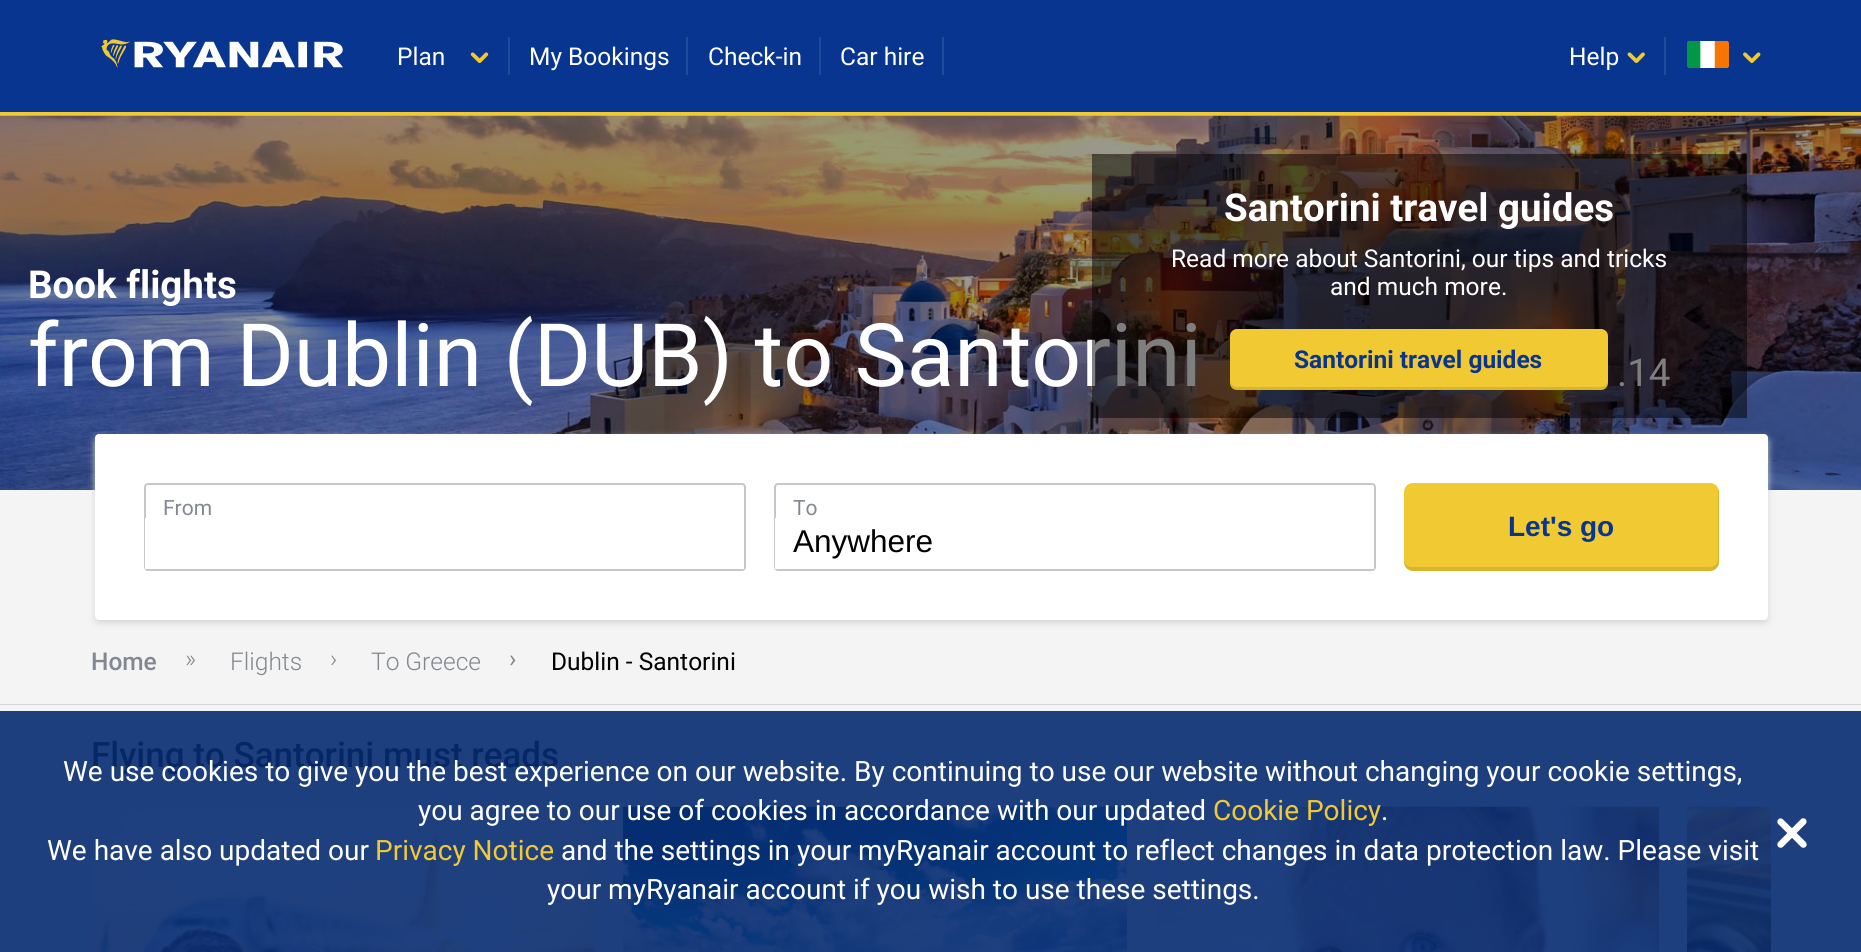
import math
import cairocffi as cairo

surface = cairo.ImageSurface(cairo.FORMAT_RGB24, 1861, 952)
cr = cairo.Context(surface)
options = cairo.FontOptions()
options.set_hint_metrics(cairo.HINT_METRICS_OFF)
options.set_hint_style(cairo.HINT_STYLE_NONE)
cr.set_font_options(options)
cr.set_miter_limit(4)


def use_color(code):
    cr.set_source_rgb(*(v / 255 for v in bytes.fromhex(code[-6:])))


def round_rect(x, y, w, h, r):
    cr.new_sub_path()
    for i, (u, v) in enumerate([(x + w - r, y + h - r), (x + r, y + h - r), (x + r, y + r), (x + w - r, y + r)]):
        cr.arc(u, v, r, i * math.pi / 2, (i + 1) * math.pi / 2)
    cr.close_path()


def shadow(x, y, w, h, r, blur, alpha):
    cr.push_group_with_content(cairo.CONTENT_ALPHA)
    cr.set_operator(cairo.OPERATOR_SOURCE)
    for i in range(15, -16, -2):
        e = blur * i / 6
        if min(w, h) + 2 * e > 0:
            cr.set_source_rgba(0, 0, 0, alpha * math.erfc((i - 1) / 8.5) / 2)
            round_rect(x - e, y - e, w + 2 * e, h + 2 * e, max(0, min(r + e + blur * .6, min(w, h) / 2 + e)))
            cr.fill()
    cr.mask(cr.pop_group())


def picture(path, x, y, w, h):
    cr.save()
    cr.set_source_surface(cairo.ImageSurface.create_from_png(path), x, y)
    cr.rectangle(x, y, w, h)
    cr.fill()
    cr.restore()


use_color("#f4f4f4")
cr.paint()
use_color("#1e3f7e")
cr.rectangle(0, 711, 1861, 241)
cr.fill()
use_color("#073590")
cr.rectangle(0, 0, 1861, 112)
cr.fill()
use_color("#f1c933")
cr.rectangle(0, 112, 1861, 4)
cr.fill()
picture("img1.png", 101, 39, 242, 29)
cr.select_font_face("Roboto")
cr.set_font_size(24.5)
use_color("#ffffff")
cr.move_to(397, 65)
cr.show_text("Plan")
picture("img2.png", 470, 52, 19, 11)
use_color("#204a9c")
cr.rectangle(508, 37, 2, 38)
cr.fill()
use_color("#ffffff")
cr.move_to(529, 65)
cr.show_text("My Bookings")
use_color("#204a9c")
cr.rectangle(686, 37, 2, 38)
cr.fill()
use_color("#ffffff")
cr.move_to(708, 65)
cr.show_text("Check-in")
use_color("#204a9c")
cr.rectangle(819, 37, 2, 38)
cr.fill()
use_color("#ffffff")
cr.move_to(840, 65)
cr.show_text("Car hire")
use_color("#204a9c")
cr.rectangle(942, 37, 2, 38)
cr.fill()
use_color("#ffffff")
cr.move_to(1569, 65)
cr.show_text("Help")
picture("img3.png", 1627, 52, 18, 11)
use_color("#204a9c")
cr.rectangle(1664, 37, 2, 38)
cr.fill()
picture("img4.png", 1687, 41, 42, 27)
round_rect(1686, 40, 44, 29, 3)
use_color("#073590")
cr.stroke()
picture("img5.png", 1743, 52, 18, 11)
picture("img6.png", 0, 115, 1861, 375)
cr.set_font_size(87.5)
use_color("#ffffff")
cr.move_to(28, 386)
cr.show_text("from Dublin (DUB) to Santorini")
cr.set_font_size(38.5)
cr.move_to(1617, 386)
cr.show_text(".14")
cr.set_source_rgba(0, 0, 0, 0.5)
cr.rectangle(1092, 154, 655, 264)
cr.fill()
cr.select_font_face("Roboto", cairo.FONT_SLANT_NORMAL, cairo.FONT_WEIGHT_BOLD)
use_color("#ffffff")
cr.move_to(1224, 221)
cr.show_text("Santorini travel guides")
cr.select_font_face("Roboto")
cr.set_font_size(24.5)
cr.move_to(1171, 267)
cr.show_text("Read more about Santorini, our tips and tricks")
cr.move_to(1330, 295)
cr.show_text("and much more.")
use_color("#f1c933")
round_rect(1230, 329, 378, 61, 7)
cr.fill()
cr.set_source_rgba(0, 0, 0, 0.1)
cr.new_path()
cr.move_to(1230, 380)
cr.line_to(1230, 383)
cr.curve_to(1230, 387, 1233, 390, 1237, 390)
cr.line_to(1601, 390)
cr.curve_to(1605, 390, 1608, 387, 1608, 383)
cr.line_to(1608, 380)
cr.curve_to(1608, 384, 1605, 387, 1601, 387)
cr.line_to(1237, 387)
cr.curve_to(1233, 387, 1230, 384, 1230, 380)
cr.close_path()
cr.fill()
cr.select_font_face("Roboto", cairo.FONT_SLANT_NORMAL, cairo.FONT_WEIGHT_BOLD)
use_color("#073590")
cr.move_to(1294, 368)
cr.show_text("Santorini travel guides")
cr.set_font_size(38.5)
use_color("#ffffff")
cr.move_to(28, 298)
cr.show_text("Book flights")
use_color("#d2d6d9")
shadow(95, 438, 1673, 185, 4, 3.5, 1)
use_color("#ffffff")
round_rect(95, 434, 1673, 186, 4)
cr.fill()
round_rect(145, 484, 600, 86, 3)
use_color("#c7c7c7")
cr.stroke()
cr.select_font_face("Roboto")
cr.set_font_size(21)
use_color("#828790")
cr.move_to(163, 515)
cr.show_text("From")
use_color("#ffffff")
cr.rectangle(145, 518, 599, 51)
cr.fill()
round_rect(775, 484, 600, 86, 3)
use_color("#c7c7c7")
cr.stroke()
use_color("#828790")
cr.move_to(793, 515)
cr.show_text("To")
use_color("#ffffff")
cr.rectangle(775, 518, 599, 51)
cr.fill()
cr.select_font_face("Liberation Sans")
cr.set_font_size(31.5)
use_color("#000000")
cr.move_to(793, 552)
cr.show_text("Anywhere")
use_color("#f1c933")
round_rect(1404, 483, 315, 88, 9)
cr.fill()
cr.set_source_rgba(0, 0, 0, 0.1)
cr.new_path()
cr.move_to(1404, 558)
cr.line_to(1404, 562)
cr.curve_to(1404, 567, 1408, 571, 1413, 571)
cr.line_to(1710, 571)
cr.curve_to(1715, 571, 1719, 567, 1719, 562)
cr.line_to(1719, 492)
cr.curve_to(1719, 491, 1719, 489, 1718, 488)
cr.line_to(1718, 558)
cr.curve_to(1718, 563, 1715, 567, 1710, 567)
cr.line_to(1412, 567)
cr.curve_to(1407, 567, 1404, 563, 1404, 558)
cr.close_path()
cr.fill()
cr.select_font_face("Liberation Sans", cairo.FONT_SLANT_NORMAL, cairo.FONT_WEIGHT_BOLD)
cr.set_font_size(28)
use_color("#073590")
cr.move_to(1508, 536)
cr.show_text("Let's go")
use_color("#d2d6d9")
cr.rectangle(0, 704, 1861, 1)
cr.fill()
cr.select_font_face("Roboto Medium")
cr.set_font_size(24.5)
use_color("#828790")
cr.move_to(91, 670)
cr.show_text("Home")
cr.select_font_face("Roboto Light")
cr.move_to(185, 667)
cr.show_text("»")
cr.move_to(230, 670)
cr.show_text("Flights")
cr.move_to(330, 667)
cr.show_text("›")
cr.move_to(371, 670)
cr.show_text("To Greece")
cr.select_font_face("Roboto")
cr.move_to(509, 667)
cr.show_text("›")
use_color("#000000")
cr.move_to(551, 670)
cr.show_text("Dublin - Santorini")
cr.select_font_face("Roboto Medium")
cr.set_font_size(35)
use_color("#052766")
cr.move_to(91, 767)
cr.show_text("Flying to Santorini must reads")
picture("img7.png", 91, 807, 504, 145)
picture("img8.png", 623, 806, 504, 146)
picture("img9.png", 1155, 806, 504, 146)
picture("img10.png", 1687, 806, 84, 146)
cr.select_font_face("Roboto")
cr.set_font_size(28)
use_color("#ffffff")
cr.move_to(63, 781)
cr.show_text("We use cookies to give you the best experience on our website. By continuing to use our website without changing your cookie settings,")
cr.move_to(418, 820)
cr.show_text("you agree to our use of cookies in accordance with our updated")
use_color("#f1c933")
cr.move_to(1213, 820)
cr.show_text("Cookie Policy")
use_color("#ffffff")
cr.move_to(1381, 820)
cr.show_text(".")
cr.move_to(47, 860)
cr.show_text("We have also updated our")
use_color("#f1c933")
cr.move_to(375, 860)
cr.show_text("Privacy Notice")
use_color("#ffffff")
cr.move_to(561, 860)
cr.show_text("and the settings in your myRyanair account to reflect changes in data protection law. Please visit")
cr.move_to(547, 899)
cr.show_text("your myRyanair account if you wish to use these settings.")
picture("img11.png", 1777, 818, 30, 30)
surface.write_to_png("result.png")
